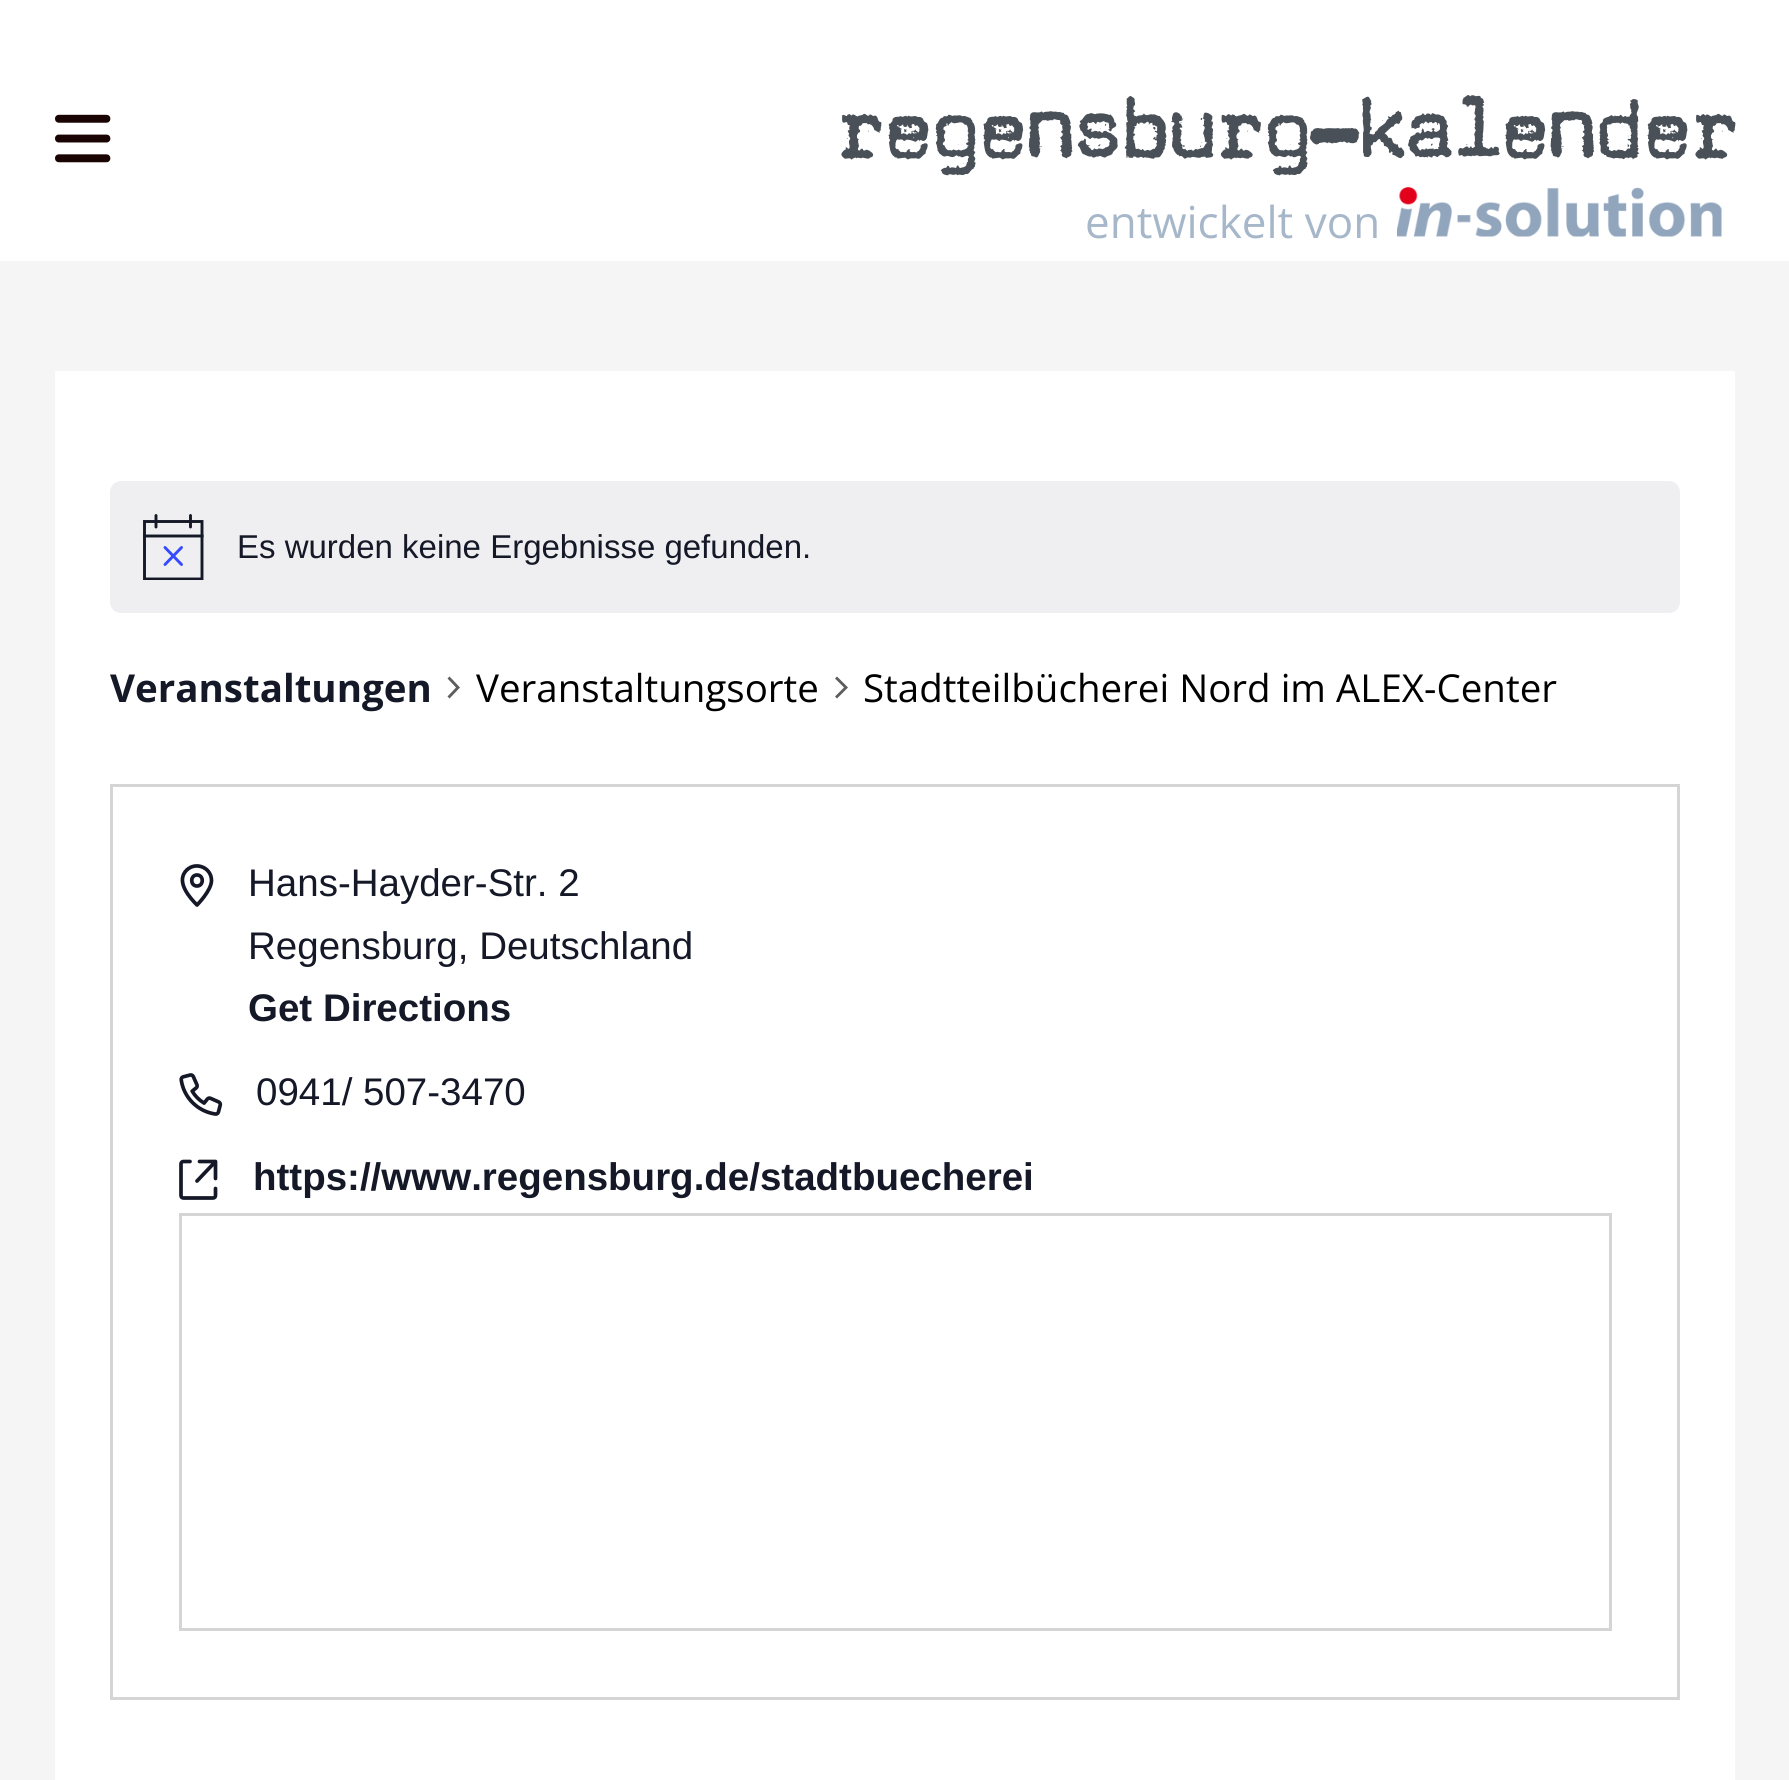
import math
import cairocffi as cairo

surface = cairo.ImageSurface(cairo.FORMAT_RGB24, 1789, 1780)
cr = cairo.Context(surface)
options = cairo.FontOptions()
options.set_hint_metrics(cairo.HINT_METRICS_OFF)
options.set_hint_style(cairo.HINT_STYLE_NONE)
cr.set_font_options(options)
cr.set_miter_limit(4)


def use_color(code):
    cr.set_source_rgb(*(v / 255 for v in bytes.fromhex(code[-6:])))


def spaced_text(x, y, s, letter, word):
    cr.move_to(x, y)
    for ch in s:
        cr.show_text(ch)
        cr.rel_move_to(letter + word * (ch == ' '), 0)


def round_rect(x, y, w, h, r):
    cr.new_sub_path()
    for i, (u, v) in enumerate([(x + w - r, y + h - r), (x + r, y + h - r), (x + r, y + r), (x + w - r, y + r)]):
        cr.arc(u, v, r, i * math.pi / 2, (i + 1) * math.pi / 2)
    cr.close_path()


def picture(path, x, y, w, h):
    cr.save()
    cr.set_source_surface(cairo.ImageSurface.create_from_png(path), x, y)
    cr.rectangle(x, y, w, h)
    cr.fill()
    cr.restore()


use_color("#f5f5f5")
cr.paint()
use_color("#ffffff")
cr.rectangle(0, 0, 1789, 261)
cr.fill()
picture("img1.png", 55, 114, 56, 49)
cr.select_font_face("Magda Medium")
cr.set_font_size(96.25)
use_color("#495057")
spaced_text(834, 157, "regensburg kalender", -5.5, 0)
spaced_text(1308, 171, "–", -5.5, 0)
cr.select_font_face("Open Sans")
cr.set_font_size(44)
use_color("#a7b7ca")
cr.move_to(1085, 238)
cr.show_text("entwickelt von")
picture("img2.png", 1397, 187, 325, 50)
use_color("#ffffff")
cr.rectangle(55, 371, 1680, 1409)
cr.fill()
use_color("#efeff1")
round_rect(110, 481, 1570, 132, 11)
cr.fill()
cr.save()
cr.rectangle(143, 514, 61, 66)
cr.clip()
cr.new_path()
cr.move_to(144.5, 521.5)
cr.line_to(202, 521.5)
cr.line_to(202, 579)
cr.line_to(144.5, 579)
cr.close_path()
use_color("#141827")
cr.set_line_width(2.9)
cr.stroke()
cr.restore()
cr.new_path()
cr.move_to(165, 547.5)
cr.line_to(181.5, 564.5)
cr.move_to(181.5, 547.5)
cr.line_to(165, 564.5)
use_color("#334aff")
cr.set_line_width(2.9)
cr.set_line_cap(cairo.LINE_CAP_ROUND)
cr.stroke()
cr.new_path()
cr.move_to(156, 515.5)
cr.line_to(156, 527)
cr.move_to(190.5, 515.5)
cr.line_to(190.5, 527)
use_color("#141827")
cr.stroke()
cr.new_path()
cr.move_to(144.5, 536)
cr.line_to(202, 536)
cr.set_line_cap(cairo.LINE_CAP_SQUARE)
cr.stroke()
cr.select_font_face("Liberation Sans")
cr.set_font_size(33)
cr.move_to(237, 558)
cr.show_text("Es wurden keine Ergebnisse gefunden.")
cr.select_font_face("Open Sans", cairo.FONT_SLANT_NORMAL, cairo.FONT_WEIGHT_BOLD)
cr.set_font_size(38.5)
cr.move_to(110, 702)
cr.show_text("Veranstaltungen")
use_color("#5d5d5d")
cr.new_path()
cr.move_to(447.5, 678.5)
cr.line_to(449.5, 676.5)
cr.line_to(460, 687.5)
cr.line_to(449.5, 698.5)
cr.line_to(447.5, 696.5)
cr.line_to(456, 687.5)
cr.close_path()
cr.fill()
cr.select_font_face("Open Sans")
use_color("#000000")
cr.move_to(476, 702)
cr.show_text("Veranstaltungsorte")
use_color("#5d5d5d")
cr.new_path()
cr.move_to(835, 678.5)
cr.line_to(837, 676.5)
cr.line_to(848, 687.5)
cr.line_to(837, 698.5)
cr.line_to(835, 696.5)
cr.line_to(844, 687.5)
cr.close_path()
cr.fill()
use_color("#000000")
cr.move_to(863, 702)
cr.show_text("Stadtteilbücherei Nord im ALEX-Center")
cr.rectangle(111.5, 785.5, 1567, 913)
use_color("#d5d5d5")
cr.set_line_width(3)
cr.set_line_cap(cairo.LINE_CAP_BUTT)
cr.stroke()
cr.new_path()
cr.move_to(211.5, 880.5)
cr.curve_to(211.5, 890.5, 197, 905, 197, 905)
cr.curve_to(189.5, 897.5, 177, 883, 185, 872)
cr.curve_to(193.5, 860.5, 211.5, 866.5, 211.5, 880.5)
cr.close_path()
cr.move_to(197, 886)
cr.curve_to(204, 886, 204, 875, 197, 875)
cr.curve_to(190, 875, 190, 886, 197, 886)
cr.close_path()
use_color("#141827")
cr.set_line_width(3.7)
cr.set_line_cap(cairo.LINE_CAP_ROUND)
cr.set_line_join(cairo.LINE_JOIN_ROUND)
cr.stroke()
cr.select_font_face("Liberation Sans")
cr.move_to(248, 896)
cr.show_text("Hans-Hayder-Str. 2")
cr.move_to(248, 959)
cr.show_text("Regensburg, Deutschland")
cr.select_font_face("Liberation Sans", cairo.FONT_SLANT_NORMAL, cairo.FONT_WEIGHT_BOLD)
cr.move_to(248, 1021)
cr.show_text("Get Directions")
picture("img3.png", 179, 1073, 44, 43)
cr.select_font_face("Liberation Sans")
cr.move_to(256, 1105)
cr.show_text("0941/ 507-3470")
cr.new_path()
cr.move_to(215.5, 1161.5)
cr.line_to(197, 1181)
cr.move_to(199.5, 1161.5)
cr.line_to(215.5, 1161.5)
cr.line_to(215.5, 1178.5)
cr.move_to(190, 1161.5)
cr.line_to(183.5, 1161.5)
cr.curve_to(182, 1161.5, 181, 1162.5, 181, 1164)
cr.line_to(181, 1195.5)
cr.curve_to(181, 1197, 182, 1198, 183.5, 1198)
cr.line_to(213, 1198)
cr.curve_to(214.5, 1198, 215.5, 1197, 215.5, 1195.5)
cr.line_to(215.5, 1188.5)
cr.stroke()
cr.select_font_face("Liberation Sans", cairo.FONT_SLANT_NORMAL, cairo.FONT_WEIGHT_BOLD)
cr.move_to(253, 1190)
cr.show_text("https://www.regensburg.de/stadtbuecherei")
cr.rectangle(180.5, 1214.5, 1430, 415)
use_color("#d5d5d5")
cr.set_line_width(3)
cr.set_line_cap(cairo.LINE_CAP_BUTT)
cr.set_line_join(cairo.LINE_JOIN_MITER)
cr.stroke()
surface.write_to_png("result.png")
